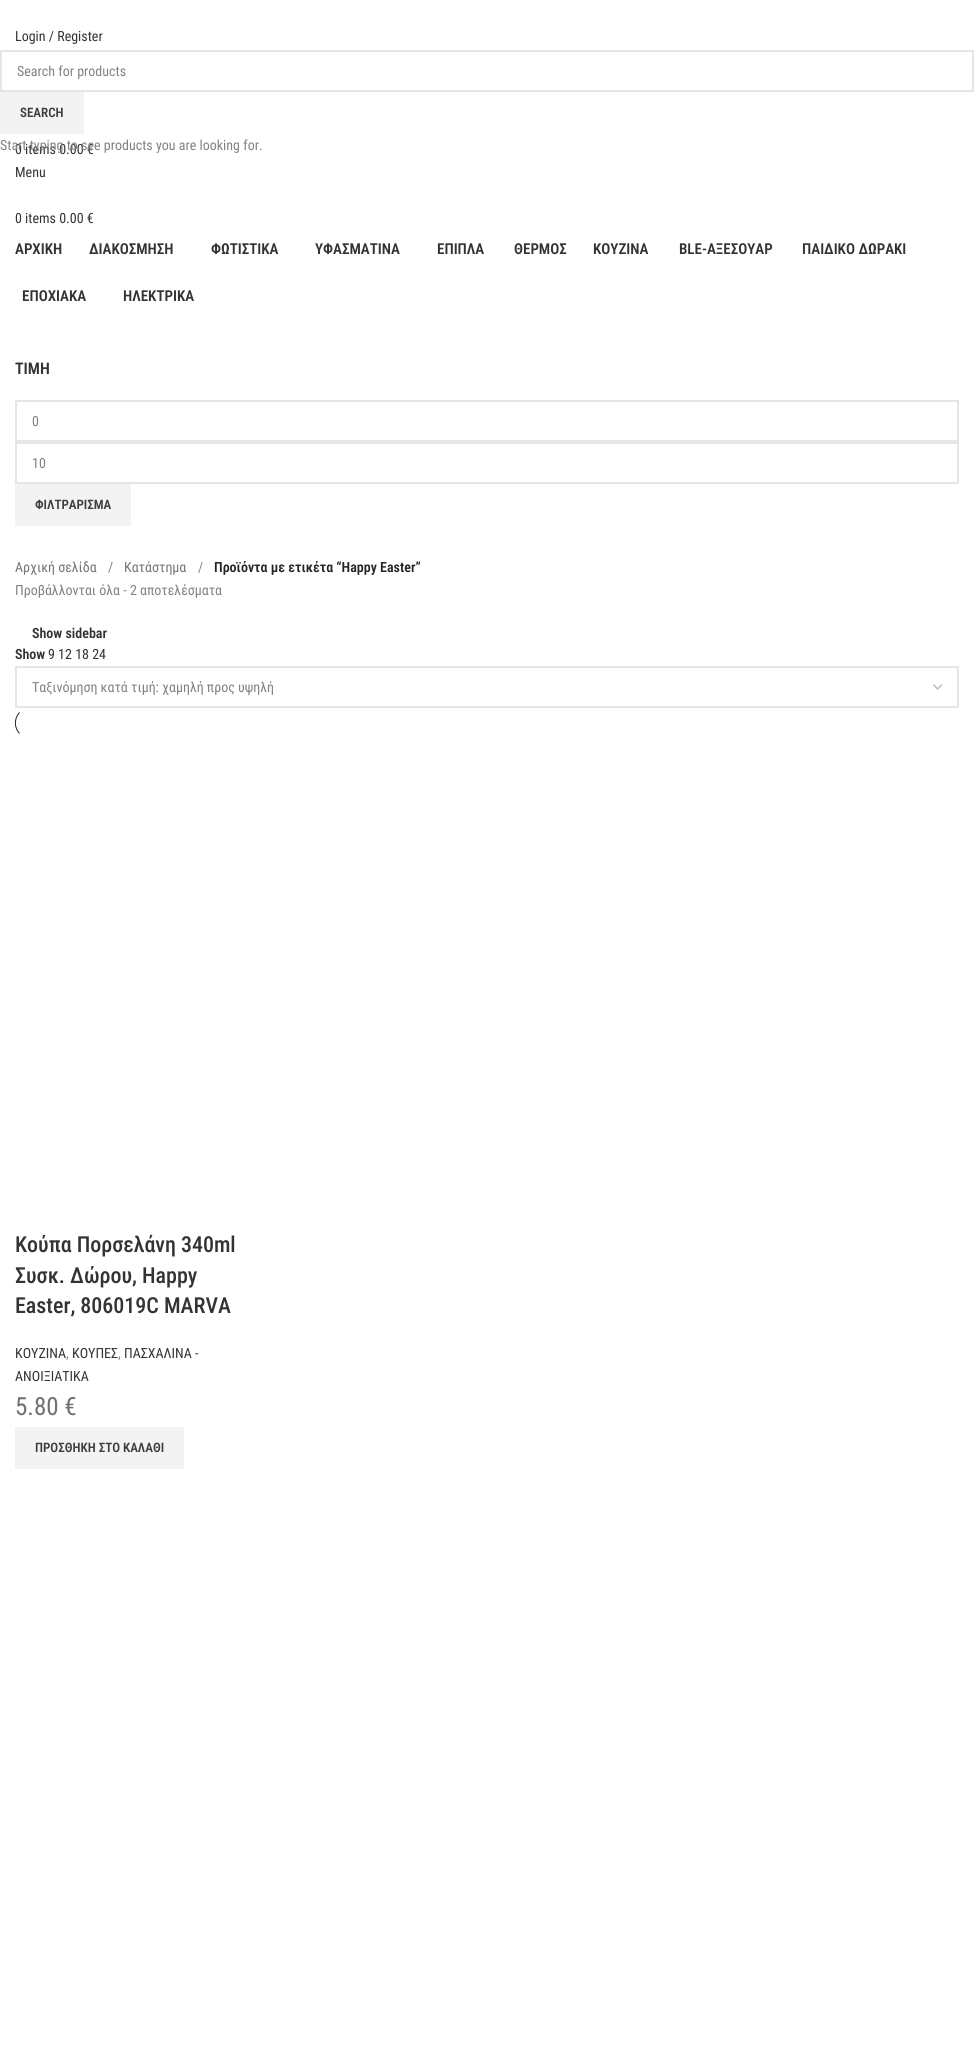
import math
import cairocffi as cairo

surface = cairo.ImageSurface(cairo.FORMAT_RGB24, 974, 2047)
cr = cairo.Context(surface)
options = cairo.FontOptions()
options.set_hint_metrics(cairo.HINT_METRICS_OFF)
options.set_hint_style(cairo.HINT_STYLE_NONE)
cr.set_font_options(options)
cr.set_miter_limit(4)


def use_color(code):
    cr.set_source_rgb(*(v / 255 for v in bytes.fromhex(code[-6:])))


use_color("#ffffff")
cr.paint()
cr.select_font_face("Roboto Condensed")
cr.set_font_size(14)
use_color("#333333")
cr.move_to(15, 41)
cr.show_text("Login / Register")
cr.move_to(15, 154)
cr.show_text("0 items 0.00 €")
cr.move_to(15, 177)
cr.show_text("Menu")
cr.move_to(15, 223)
cr.show_text("0 items 0.00 €")
cr.select_font_face("Roboto Condensed SemiBold")
cr.set_font_size(15)
cr.move_to(15, 254)
cr.show_text("ΑΡΧΙΚΗ")
cr.move_to(89, 254)
cr.show_text("ΔΙΑΚΟΣΜΗΣΗ")
cr.move_to(211, 254)
cr.show_text("ΦΩΤΙΣΤΙΚΑ")
cr.move_to(315, 254)
cr.show_text("ΥΦΑΣΜΑΤΙΝΑ")
cr.move_to(437, 254)
cr.show_text("ΕΠΙΠΛΑ")
cr.move_to(514, 254)
cr.show_text("ΘΕΡΜΟΣ")
cr.move_to(593, 254)
cr.show_text("ΚΟΥΖΙΝΑ")
cr.move_to(679, 254)
cr.show_text("BLE-ΑΞΕΣΟΥΑΡ")
cr.move_to(802, 254)
cr.show_text("ΠΑΙΔΙΚΟ ΔΩΡΑΚΙ")
cr.move_to(22, 301)
cr.show_text("ΕΠΟΧΙΑΚΑ")
cr.move_to(123, 301)
cr.show_text("ΗΛΕΚΤΡΙΚΑ")
cr.set_font_size(16)
cr.move_to(15, 374)
cr.show_text("ΤΙΜΗ")
cr.rectangle(16, 401, 942, 40)
use_color("#e6e6e6")
cr.stroke()
cr.select_font_face("Roboto Condensed")
cr.set_font_size(14)
use_color("#828282")
cr.move_to(32, 426)
cr.show_text("0")
cr.rectangle(16, 443, 942, 40)
use_color("#e6e6e6")
cr.stroke()
use_color("#828282")
cr.move_to(32, 468)
cr.show_text("10")
use_color("#f3f3f3")
cr.rectangle(15, 484, 116, 42)
cr.fill()
cr.select_font_face("Roboto Condensed SemiBold")
cr.set_font_size(13)
use_color("#3e3e3e")
cr.move_to(35, 509)
cr.show_text("ΦΙΛΤΡΑΡΙΣΜΑ")
cr.select_font_face("Roboto Condensed")
cr.set_font_size(14)
use_color("#767676")
cr.move_to(15, 572)
cr.show_text("Αρχική σελίδα")
use_color("#828282")
cr.move_to(108, 572)
cr.show_text("/")
use_color("#767676")
cr.move_to(124, 572)
cr.show_text("Κατάστημα")
use_color("#828282")
cr.move_to(198, 572)
cr.show_text("/")
cr.select_font_face("Roboto Condensed SemiBold")
use_color("#242424")
cr.move_to(214, 572)
cr.show_text("Προϊόντα με ετικέτα “Happy Easter”")
cr.select_font_face("Roboto Condensed")
use_color("#828282")
cr.move_to(15, 595)
cr.show_text("Προβάλλονται όλα - 2 αποτελέσματα")
cr.select_font_face("Roboto Condensed SemiBold")
use_color("#333333")
cr.move_to(32, 638)
cr.show_text("Show sidebar")
cr.move_to(15, 659)
cr.show_text("Show")
cr.select_font_face("Roboto Condensed")
cr.move_to(48, 659)
cr.show_text("9 12 18 24")
cr.new_path()
cr.move_to(933.5, 684.5)
cr.line_to(937.5, 689)
cr.line_to(942, 684.5)
use_color("#bbbbbb")
cr.set_line_width(1.4)
cr.stroke()
cr.rectangle(16, 667, 942, 40)
use_color("#e6e6e6")
cr.set_line_width(2)
cr.stroke()
use_color("#828282")
cr.move_to(32, 692)
cr.show_text("Ταξινόμηση κατά τιμή: χαμηλή προς υψηλή")
cr.new_path()
cr.move_to(19.5, 733.5)
cr.curve_to(14, 727.5, 14, 718.5, 19.5, 712.5)
use_color("#242424")
cr.set_line_width(1)
cr.stroke()
cr.select_font_face("Roboto Condensed Medium")
cr.set_font_size(22)
use_color("#333333")
cr.move_to(15, 1252)
cr.show_text("Κούπα Πορσελάνη 340ml")
cr.move_to(15, 1283)
cr.show_text("Συσκ. Δώρου, Happy")
cr.move_to(15, 1313)
cr.show_text("Easter, 806019C MARVA")
cr.select_font_face("Roboto Condensed")
cr.set_font_size(14)
cr.move_to(15, 1358)
cr.show_text("ΚΟΥΖΙΝΑ")
use_color("#828282")
cr.move_to(66, 1358)
cr.show_text(",")
use_color("#333333")
cr.move_to(72, 1358)
cr.show_text("ΚΟΥΠΕΣ")
use_color("#828282")
cr.move_to(118, 1358)
cr.show_text(",")
use_color("#333333")
cr.move_to(124, 1358)
cr.show_text("ΠΑΣΧΑΛΙΝΑ -")
cr.move_to(15, 1381)
cr.show_text("ΑΝΟΙΞΙΑΤΙΚΑ")
cr.set_font_size(25)
use_color("#707070")
cr.move_to(15, 1415)
cr.show_text("5.80 €")
use_color("#f3f3f3")
cr.rectangle(15, 1427, 169, 42)
cr.fill()
cr.select_font_face("Roboto Condensed SemiBold")
cr.set_font_size(13)
use_color("#3e3e3e")
cr.move_to(35, 1452)
cr.show_text("ΠΡΟΣΘΗΚΗ ΣΤΟ ΚΑΛΑΘΙ")
cr.new_path()
cr.move_to(18.5, 31.5)
cr.curve_to(14.5, 28, 14.5, 22, 18.5, 18.5)
use_color("#ffffff")
cr.stroke()
cr.rectangle(1, 51, 972, 40)
use_color("#e6e6e6")
cr.set_line_width(2)
cr.stroke()
cr.select_font_face("Roboto Condensed")
cr.set_font_size(14)
use_color("#828282")
cr.move_to(17, 76)
cr.show_text("Search for products")
use_color("#f3f3f3")
cr.rectangle(0, 92, 84, 42)
cr.fill()
cr.select_font_face("Roboto Condensed SemiBold")
cr.set_font_size(13)
use_color("#3e3e3e")
cr.move_to(20, 117)
cr.show_text("SEARCH")
cr.select_font_face("Roboto Condensed")
cr.set_font_size(14)
use_color("#828282")
cr.move_to(0, 150)
cr.show_text("Start typing to see products you are looking for.")
surface.write_to_png("result.png")
